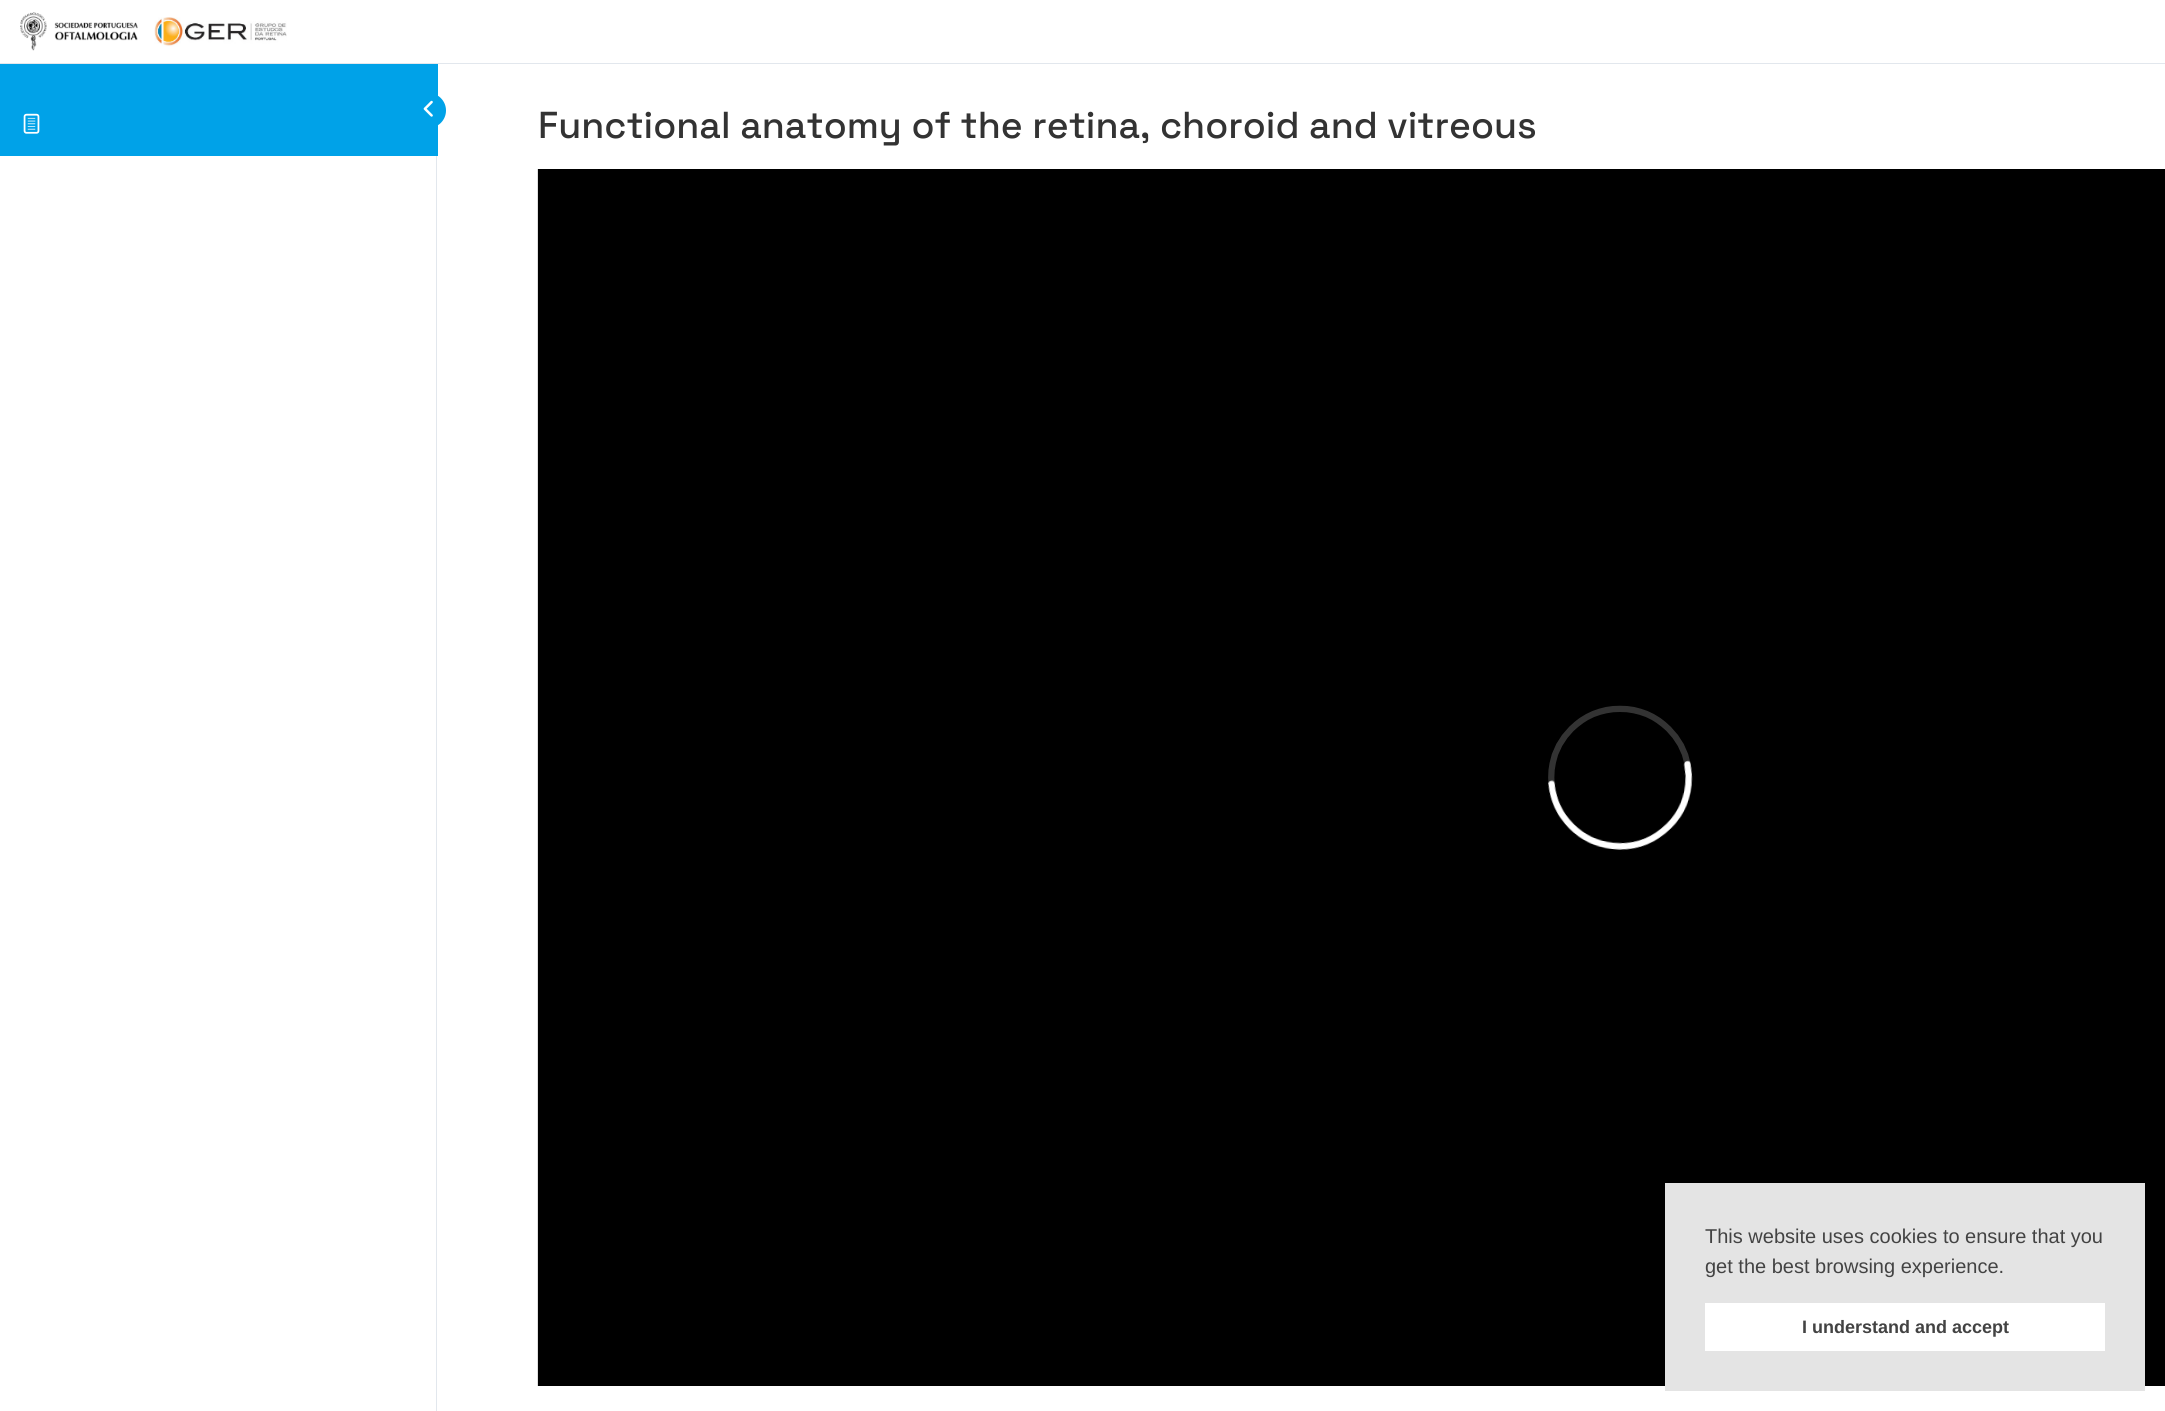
import math
import cairocffi as cairo

surface = cairo.ImageSurface(cairo.FORMAT_RGB24, 2165, 1411)
cr = cairo.Context(surface)
options = cairo.FontOptions()
options.set_hint_metrics(cairo.HINT_METRICS_OFF)
options.set_hint_style(cairo.HINT_STYLE_NONE)
cr.set_font_options(options)
cr.set_miter_limit(4)


def use_color(code):
    cr.set_source_rgb(*(v / 255 for v in bytes.fromhex(code[-6:])))


def round_rect(x, y, w, h, r):
    cr.new_sub_path()
    for i, (u, v) in enumerate([(x + w - r, y + h - r), (x + r, y + h - r), (x + r, y + r), (x + w - r, y + r)]):
        cr.arc(u, v, r, i * math.pi / 2, (i + 1) * math.pi / 2)
    cr.close_path()


def picture(path, x, y, w, h):
    cr.save()
    cr.set_source_surface(cairo.ImageSurface.create_from_png(path), x, y)
    cr.rectangle(x, y, w, h)
    cr.fill()
    cr.restore()


use_color("#ffffff")
cr.paint()
use_color("#e2e7ed")
cr.rectangle(436, 156, 1, 1255)
cr.fill()
use_color("#00a2e8")
cr.rectangle(0, 64, 438, 92)
cr.fill()
picture("img1.png", 23, 113, 17, 21)
round_rect(410, 93, 36, 35, 17.5)
cr.fill()
picture("img2.png", 423, 100, 10, 17)
use_color("#e2e7ed")
cr.rectangle(0, 63, 2165, 1)
cr.fill()
picture("img3.png", 20, 12, 267, 39)
cr.select_font_face("Space Grotesk Medium")
cr.set_font_size(37.5)
use_color("#333333")
cr.move_to(538, 138)
cr.show_text("Functional anatomy of the retina, choroid and vitreous")
picture("img4.png", 537, 169, 1628, 1217)
use_color("#e4e4e4")
cr.rectangle(1665, 1183, 480, 208)
cr.fill()
cr.select_font_face("Liberation Sans")
cr.set_font_size(20)
use_color("#434343")
cr.move_to(1705, 1243)
cr.show_text("This website uses cookies to ensure that you")
cr.move_to(1705, 1273)
cr.show_text("get the best browsing experience.")
use_color("#ffffff")
cr.rectangle(1705, 1303, 400, 48)
cr.fill()
cr.select_font_face("Liberation Sans", cairo.FONT_SLANT_NORMAL, cairo.FONT_WEIGHT_BOLD)
cr.set_font_size(18)
use_color("#434343")
cr.move_to(1802, 1333)
cr.show_text("I understand and accept")
surface.write_to_png("result.png")
